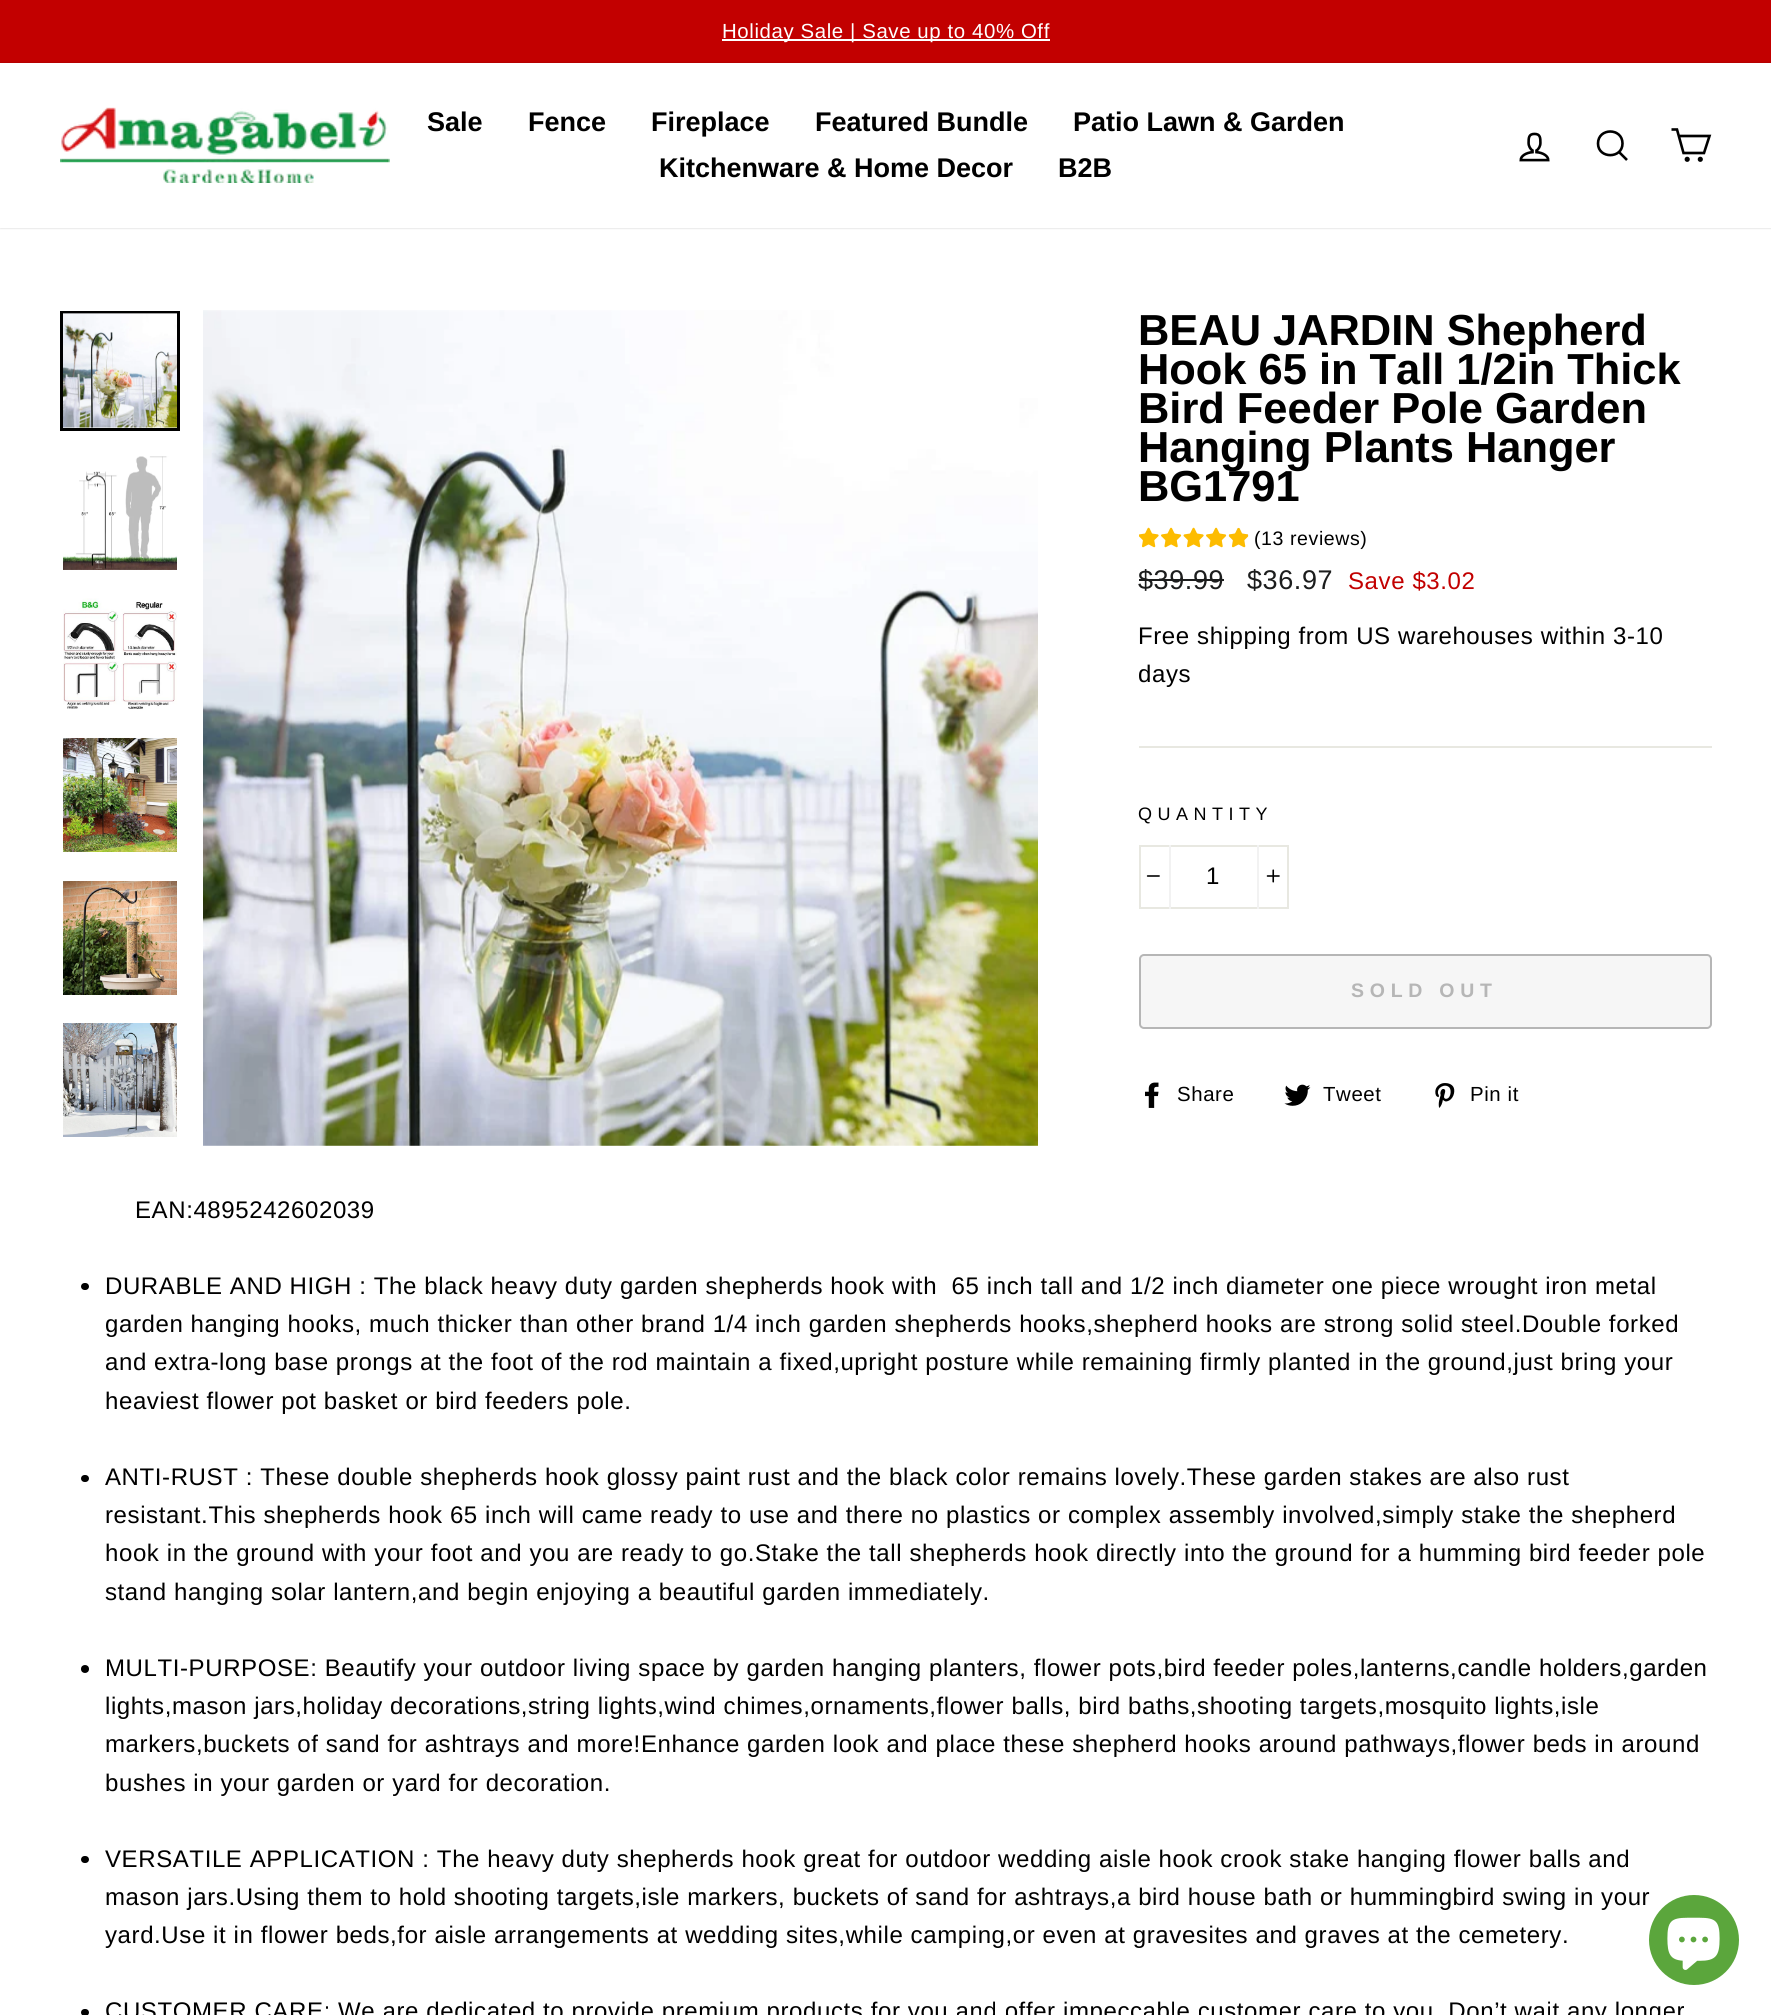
import math
import cairocffi as cairo

surface = cairo.ImageSurface(cairo.FORMAT_RGB24, 1771, 2015)
cr = cairo.Context(surface)
options = cairo.FontOptions()
options.set_hint_metrics(cairo.HINT_METRICS_OFF)
options.set_hint_style(cairo.HINT_STYLE_NONE)
cr.set_font_options(options)
cr.set_miter_limit(4)


def use_color(code):
    cr.set_source_rgb(*(v / 255 for v in bytes.fromhex(code[-6:])))


def spaced_text(x, y, s, letter, word):
    cr.move_to(x, y)
    for ch in s:
        cr.show_text(ch)
        cr.rel_move_to(letter + word * (ch == ' '), 0)


def round_rect(x, y, w, h, r):
    cr.new_sub_path()
    for i, (u, v) in enumerate([(x + w - r, y + h - r), (x + r, y + h - r), (x + r, y + r), (x + w - r, y + r)]):
        cr.arc(u, v, r, i * math.pi / 2, (i + 1) * math.pi / 2)
    cr.close_path()


def shadow(x, y, w, h, r, blur, alpha):
    cr.push_group_with_content(cairo.CONTENT_ALPHA)
    cr.set_operator(cairo.OPERATOR_SOURCE)
    for i in range(15, -16, -2):
        e = blur * i / 6
        if min(w, h) + 2 * e > 0:
            cr.set_source_rgba(0, 0, 0, alpha * math.erfc((i - 1) / 8.5) / 2)
            round_rect(x - e, y - e, w + 2 * e, h + 2 * e, max(0, min(r + e + blur * .6, min(w, h) / 2 + e)))
            cr.fill()
    cr.mask(cr.pop_group())


def picture(path, x, y, w, h):
    cr.save()
    cr.set_source_surface(cairo.ImageSurface.create_from_png(path), x, y)
    cr.rectangle(x, y, w, h)
    cr.fill()
    cr.restore()


use_color("#ffffff")
cr.paint()
use_color("#c20000")
cr.rectangle(0, 0, 1771, 63)
cr.fill()
use_color("#ffffff")
cr.rectangle(722, 39, 328, 2)
cr.fill()
cr.select_font_face("Arimo")
cr.set_font_size(20.4)
spaced_text(722, 38, "Holiday Sale | Save up to 40% Off", 0.6, 0)
cr.save()
cr.set_fill_rule(cairo.FILL_RULE_EVEN_ODD)
cr.new_path()
cr.move_to(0, 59)
cr.line_to(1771, 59)
cr.line_to(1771, 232)
cr.line_to(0, 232)
cr.close_path()
cr.move_to(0, 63)
cr.line_to(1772, 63)
cr.line_to(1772, 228)
cr.line_to(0, 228)
cr.close_path()
cr.clip()
use_color("#000000")
shadow(0, 63, 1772, 165, 0, 1, 0.2)
cr.restore()
picture("img1.png", 60, 107, 330, 76)
cr.select_font_face("Arimo", cairo.FONT_SLANT_NORMAL, cairo.FONT_WEIGHT_BOLD)
cr.set_font_size(27)
use_color("#000000")
cr.move_to(427, 131)
cr.show_text("Sale")
cr.move_to(528, 131)
cr.show_text("Fence")
cr.move_to(651, 131)
cr.show_text("Fireplace")
cr.move_to(815, 131)
cr.show_text("Featured Bundle")
cr.move_to(1073, 131)
cr.show_text("Patio Lawn & Garden")
cr.move_to(659, 177)
cr.show_text("Kitchenware & Home Decor")
cr.move_to(1058, 177)
cr.show_text("B2B")
picture("img2.png", 1519, 132, 31, 30)
cr.new_path()
cr.move_to(1622.5, 143.5)
cr.curve_to(1622.5, 159, 1598, 159, 1598, 143.5)
cr.curve_to(1598, 127.5, 1622.5, 127.5, 1622.5, 143.5)
cr.close_path()
cr.move_to(1627, 160)
cr.line_to(1619, 152)
cr.set_line_width(2.6)
cr.stroke()
cr.new_path()
cr.move_to(1678.5, 136)
cr.line_to(1709.5, 136)
cr.line_to(1704, 153)
cr.line_to(1683.5, 153)
cr.line_to(1677, 129.5)
cr.line_to(1671.5, 129.5)
cr.stroke()
cr.arc(1687.2, 159.3, 1.3, 0, 2 * math.pi)
cr.stroke()
cr.arc(1700.3, 159.3, 1.3, 0, 2 * math.pi)
cr.stroke()
cr.rectangle(61.5, 312.5, 117, 117)
cr.set_line_width(3)
cr.stroke()
picture("img3.png", 63, 313, 114, 115)
picture("img4.png", 63, 456, 114, 114)
picture("img5.png", 63, 598, 114, 111)
picture("img6.png", 63, 738, 114, 114)
picture("img7.png", 63, 881, 114, 114)
picture("img8.png", 63, 1023, 114, 114)
picture("img9.png", 203, 310, 835, 836)
cr.set_font_size(43.4)
cr.move_to(1138, 345)
cr.show_text("BEAU JARDIN Shepherd")
cr.move_to(1138, 384)
cr.show_text("Hook 65 in Tall 1/2in Thick")
cr.move_to(1138, 423)
cr.show_text("Bird Feeder Pole Garden")
cr.move_to(1138, 462)
cr.show_text("Hanging Plants Hanger")
cr.move_to(1138, 501)
cr.show_text("BG1791")
picture("img10.png", 1139, 527, 20, 21)
picture("img11.png", 1161, 527, 21, 21)
picture("img12.png", 1183, 527, 21, 21)
picture("img11.png", 1206, 527, 21, 21)
picture("img13.png", 1228, 527, 21, 20)
picture("img14.png", 1229, 528, 19, 20)
cr.select_font_face("Arimo")
cr.set_font_size(19.5)
spaced_text(1254, 545, "(13 reviews)", 0.6, 0)
cr.set_font_size(27)
use_color("#1c1d1d")
spaced_text(1138, 589, "$39.99", 0.6, 0)
cr.rectangle(1139, 579, 85, 2)
cr.fill()
spaced_text(1247, 589, "$36.97", 0.6, 0)
cr.set_font_size(24)
use_color("#c20000")
spaced_text(1348, 589, "Save $3.02", 0.6, 0)
use_color("#000000")
spaced_text(1138, 644, "Free shipping from US warehouses within 3-10", 0.6, 0)
spaced_text(1138, 682, "days", 0.6, 0)
use_color("#e8e8e1")
cr.rectangle(1139, 746, 573, 2)
cr.fill()
cr.set_font_size(18)
use_color("#000000")
spaced_text(1138, 820, "QUANTITY", 5.5, 0)
cr.rectangle(1140, 846, 148, 62)
use_color("#e8e8e1")
cr.set_line_width(2)
cr.stroke()
use_color("#f2f2f2")
cr.rectangle(1169, 845, 2, 64)
cr.fill()
picture("img15.png", 1146, 875, 14, 2)
cr.set_font_size(24)
use_color("#000000")
spaced_text(1206, 884, "1", 0.6, 0)
use_color("#f2f2f2")
cr.rectangle(1257, 845, 2, 64)
cr.fill()
picture("img16.png", 1266, 869, 14, 14)
use_color("#f6f6f6")
round_rect(1140, 955, 571, 73, 4)
cr.fill_preserve()
use_color("#b6b6b6")
cr.stroke()
cr.select_font_face("Arimo", cairo.FONT_SLANT_NORMAL, cairo.FONT_WEIGHT_BOLD)
cr.set_font_size(19.5)
spaced_text(1351, 997, "SOLD OUT", 5.75, 0)
picture("img17.png", 1145, 1082, 14, 26)
cr.select_font_face("Arimo")
cr.set_font_size(20.4)
use_color("#000000")
spaced_text(1177, 1101, "Share", 0.6, 0)
picture("img18.png", 1284, 1084, 27, 22)
spaced_text(1323, 1101, "Tweet", 0.6, 0)
picture("img19.png", 1435, 1083, 20, 25)
spaced_text(1470, 1101, "Pin it", 0.6, 0)
cr.set_font_size(24)
spaced_text(135, 1218, "EAN:4895242602039", 0.6, 0)
round_rect(81, 1283, 8, 7, 3.5)
cr.fill()
spaced_text(105, 1294, "DURABLE AND HIGH : The black heavy duty garden shepherds hook with  65 inch tall and 1/2 inch diameter one piece wrought iron metal", 0.6, 0)
spaced_text(105, 1332, "garden hanging hooks, much thicker than other brand 1/4 inch garden shepherds hooks,shepherd hooks are strong solid steel.Double forked", 0.6, 0)
spaced_text(105, 1370, "and extra-long base prongs at the foot of the rod maintain a fixed,upright posture while remaining firmly planted in the ground,just bring your", 0.6, 0)
spaced_text(105, 1409, "heaviest flower pot basket or bird feeders pole.", 0.6, 0)
round_rect(81, 1475, 8, 7, 3.5)
cr.fill()
spaced_text(105, 1485, "ANTI-RUST : These double shepherds hook glossy paint rust and the black color remains lovely.These garden stakes are also rust", 0.6, 0)
spaced_text(105, 1523, "resistant.This shepherds hook 65 inch will came ready to use and there no plastics or complex assembly involved,simply stake the shepherd", 0.6, 0)
spaced_text(105, 1561, "hook in the ground with your foot and you are ready to go.Stake the tall shepherds hook directly into the ground for a humming bird feeder pole", 0.6, 0)
spaced_text(105, 1600, "stand hanging solar lantern,and begin enjoying a beautiful garden immediately.", 0.6, 0)
cr.new_path()
cr.arc(85, 1669, 4, 0, 2 * math.pi)
cr.fill()
spaced_text(105, 1676, "MULTI-PURPOSE: Beautify your outdoor living space by garden hanging planters, flower pots,bird feeder poles,lanterns,candle holders,garden", 0.6, 0)
spaced_text(105, 1714, "lights,mason jars,holiday decorations,string lights,wind chimes,ornaments,flower balls, bird baths,shooting targets,mosquito lights,isle", 0.6, 0)
spaced_text(105, 1752, "markers,buckets of sand for ashtrays and more!Enhance garden look and place these shepherd hooks around pathways,flower beds in around", 0.6, 0)
spaced_text(105, 1791, "bushes in your garden or yard for decoration.", 0.6, 0)
round_rect(81, 1856, 8, 7, 3.5)
cr.fill()
spaced_text(105, 1867, "VERSATILE APPLICATION : The heavy duty shepherds hook great for outdoor wedding aisle hook crook stake hanging flower balls and", 0.6, 0)
spaced_text(105, 1905, "mason jars.Using them to hold shooting targets,isle markers, buckets of sand for ashtrays,a bird house bath or hummingbird swing in your", 0.6, 0)
spaced_text(105, 1943, "yard.Use it in flower beds,for aisle arrangements at wedding sites,while camping,or even at gravesites and graves at the cemetery.", 0.6, 0)
round_rect(81, 2009, 8, 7, 3.5)
cr.fill()
spaced_text(105, 2019, "CUSTOMER CARE: We are dedicated to provide premium products for you and offer impeccable customer care to you. Don’t wait any longer", 0.6, 0)
use_color("#5ba63c")
cr.new_path()
cr.arc(1694, 1940, 45, 0, 2 * math.pi)
cr.fill()
picture("img20.png", 1667, 1917, 53, 53)
surface.write_to_png("result.png")
